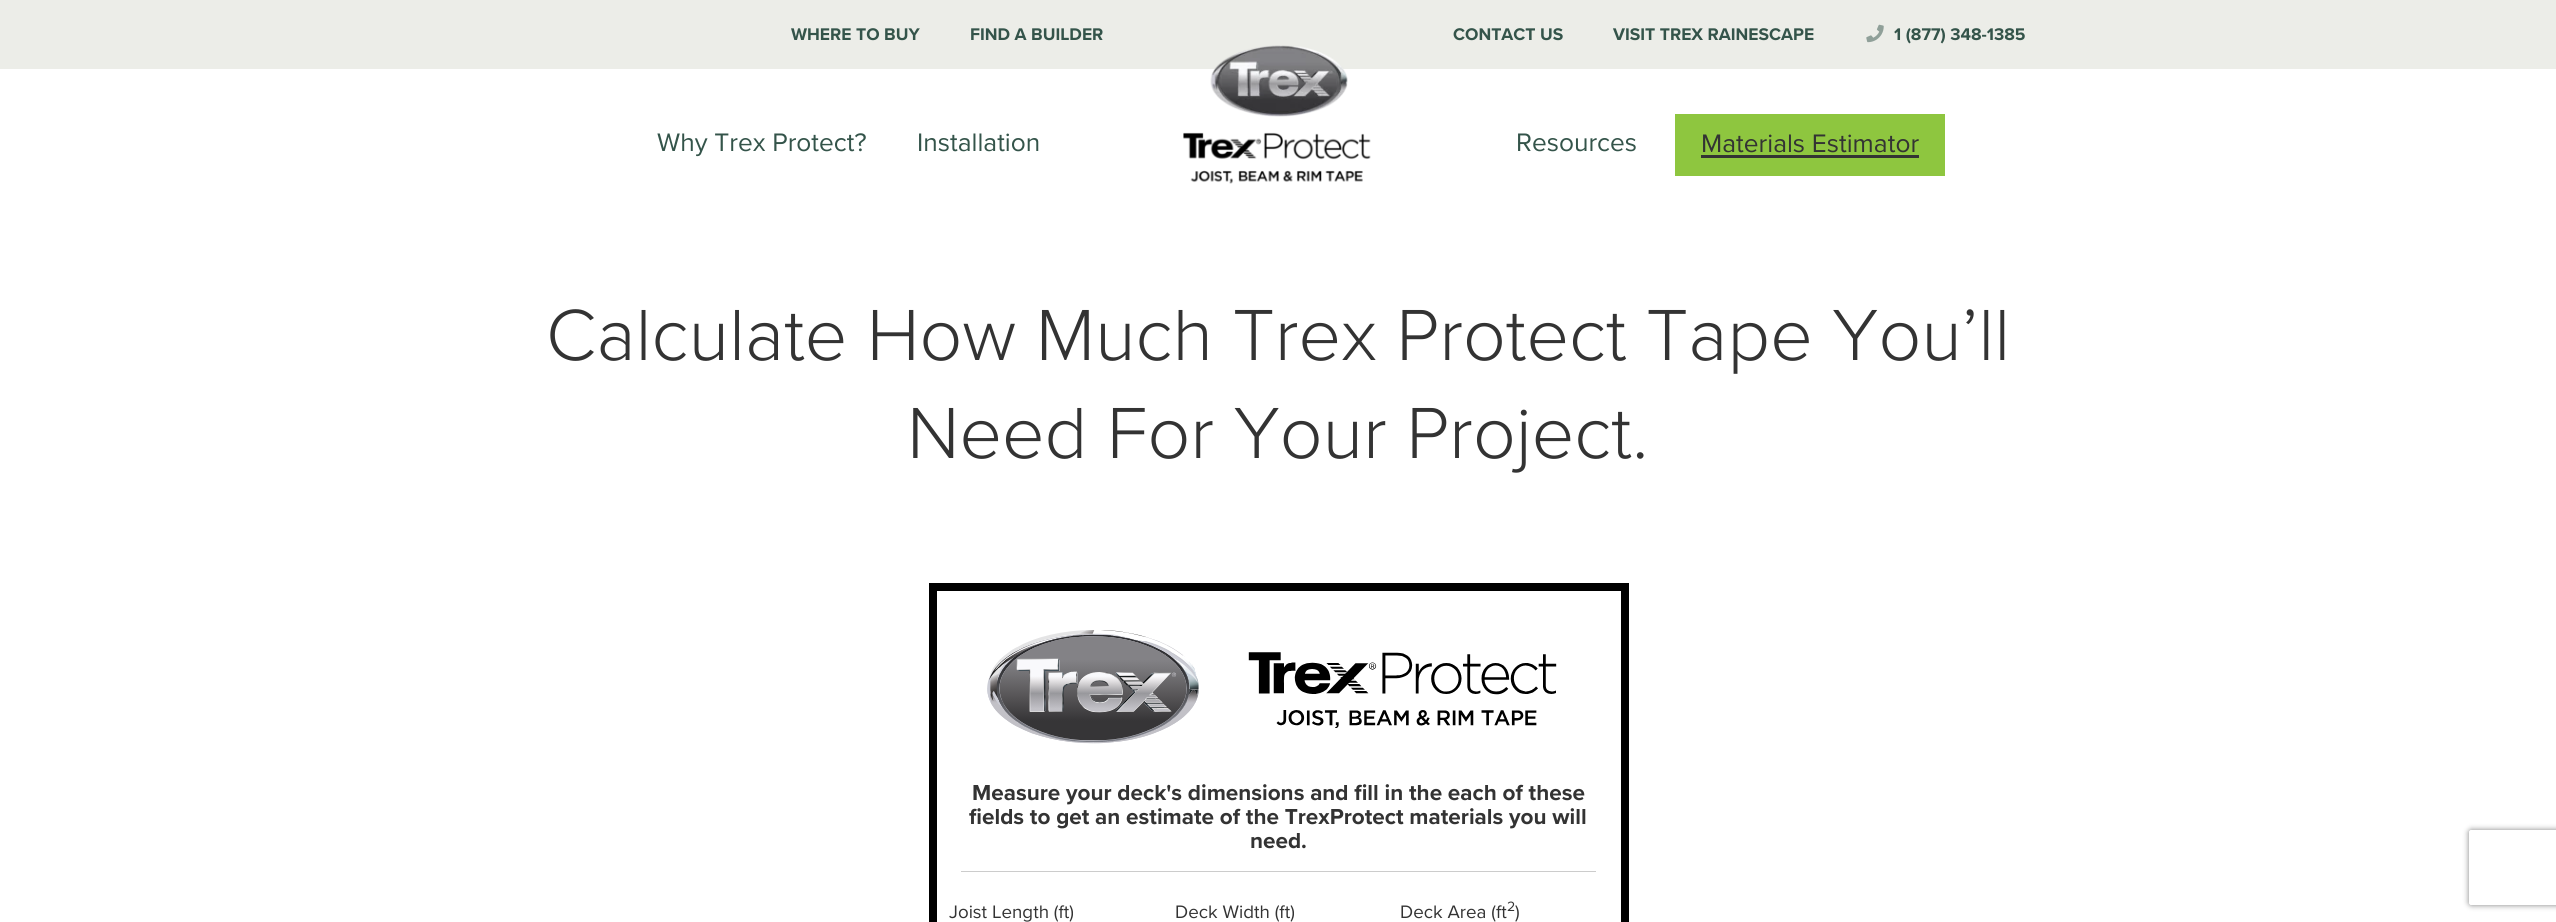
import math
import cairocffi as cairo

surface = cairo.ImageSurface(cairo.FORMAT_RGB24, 2556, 922)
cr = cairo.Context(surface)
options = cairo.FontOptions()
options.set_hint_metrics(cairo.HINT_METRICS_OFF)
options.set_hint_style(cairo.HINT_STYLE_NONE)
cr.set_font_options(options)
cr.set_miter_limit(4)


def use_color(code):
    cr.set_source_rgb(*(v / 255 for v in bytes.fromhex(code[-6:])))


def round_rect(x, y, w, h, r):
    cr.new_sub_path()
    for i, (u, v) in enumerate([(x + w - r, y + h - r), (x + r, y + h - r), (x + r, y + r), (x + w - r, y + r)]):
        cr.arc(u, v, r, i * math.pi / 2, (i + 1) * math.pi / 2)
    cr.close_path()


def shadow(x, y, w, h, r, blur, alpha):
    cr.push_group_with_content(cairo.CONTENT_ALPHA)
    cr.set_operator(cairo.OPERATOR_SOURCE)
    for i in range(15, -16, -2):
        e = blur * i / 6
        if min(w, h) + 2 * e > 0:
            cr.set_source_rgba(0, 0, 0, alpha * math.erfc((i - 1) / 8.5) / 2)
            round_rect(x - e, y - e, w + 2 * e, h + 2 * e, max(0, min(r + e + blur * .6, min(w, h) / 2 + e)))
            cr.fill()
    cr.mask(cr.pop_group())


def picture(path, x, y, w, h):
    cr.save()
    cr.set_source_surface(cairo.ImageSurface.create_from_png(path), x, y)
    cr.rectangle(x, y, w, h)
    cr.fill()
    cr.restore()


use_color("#ffffff")
cr.paint()
use_color("#ecede8")
cr.rectangle(0, 0, 2556, 69)
cr.fill()
cr.select_font_face("Proxima Nova", cairo.FONT_SLANT_NORMAL, cairo.FONT_WEIGHT_BOLD)
cr.set_font_size(17.5)
use_color("#34544a")
cr.move_to(791, 40)
cr.show_text("WHERE TO BUY")
cr.move_to(970, 40)
cr.show_text("FIND A BUILDER")
cr.move_to(1453, 40)
cr.show_text("CONTACT US")
cr.move_to(1613, 40)
cr.show_text("VISIT TREX RAINESCAPE")
picture("img1.png", 1866, 24, 18, 19)
cr.move_to(1894, 40)
cr.show_text("1 (877) 348-1385")
cr.select_font_face("Proxima Nova")
cr.set_font_size(26.25)
cr.move_to(657, 151)
cr.show_text("Why Trex Protect?")
cr.move_to(917, 151)
cr.show_text("Installation")
picture("img2.png", 1183, 45, 188, 139)
cr.move_to(1516, 151)
cr.show_text("Resources")
use_color("#8ec63f")
cr.rectangle(1675, 114, 270, 62)
cr.fill()
use_color("#333333")
cr.move_to(1701, 152)
cr.show_text("Materials Estimator")
cr.rectangle(1701, 155, 218, 3)
cr.fill()
cr.select_font_face("Proxima Nova Light")
cr.set_font_size(75)
cr.move_to(546, 360)
cr.show_text("Calculate How Much Trex Protect Tape You’ll")
cr.move_to(907, 458)
cr.show_text("Need For Your Project.")
cr.rectangle(933, 587, 692, 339)
use_color("#000000")
cr.set_line_width(8)
cr.stroke()
use_color("#cccccc")
cr.rectangle(961, 871, 635, 1)
cr.fill()
picture("img3.png", 987, 630, 570, 114)
cr.select_font_face("Proxima Nova", cairo.FONT_SLANT_NORMAL, cairo.FONT_WEIGHT_BOLD)
cr.set_font_size(22.5)
use_color("#333333")
cr.move_to(972, 800)
cr.show_text("Measure your deck's dimensions and fill in the each of these")
cr.move_to(969, 824)
cr.show_text("fields to get an estimate of the TrexProtect materials you will")
cr.move_to(1250, 848)
cr.show_text("need.")
cr.select_font_face("Proxima Nova")
cr.set_font_size(18.75)
cr.move_to(949, 918)
cr.show_text("Joist Length (ft)")
cr.move_to(1175, 918)
cr.show_text("Deck Width (ft)")
cr.move_to(1400, 918)
cr.show_text("Deck Area (ft")
cr.set_font_size(14)
cr.move_to(1507, 911)
cr.show_text("2")
cr.set_font_size(18.75)
cr.move_to(1515, 918)
cr.show_text(")")
cr.save()
cr.set_fill_rule(cairo.FILL_RULE_EVEN_ODD)
cr.new_path()
cr.move_to(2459, 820)
cr.line_to(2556, 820)
cr.line_to(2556, 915)
cr.line_to(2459, 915)
cr.close_path()
cr.move_to(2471.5, 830)
cr.line_to(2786.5, 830)
cr.curve_to(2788, 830, 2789, 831, 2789, 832.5)
cr.line_to(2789, 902.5)
cr.curve_to(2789, 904, 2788, 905, 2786.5, 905)
cr.line_to(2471.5, 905)
cr.curve_to(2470, 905, 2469, 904, 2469, 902.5)
cr.line_to(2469, 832.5)
cr.curve_to(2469, 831, 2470, 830, 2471.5, 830)
cr.close_path()
cr.clip()
use_color("#808080")
shadow(2469, 830, 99, 75, 2.5, 3, 1)
cr.restore()
surface.write_to_png("result.png")
